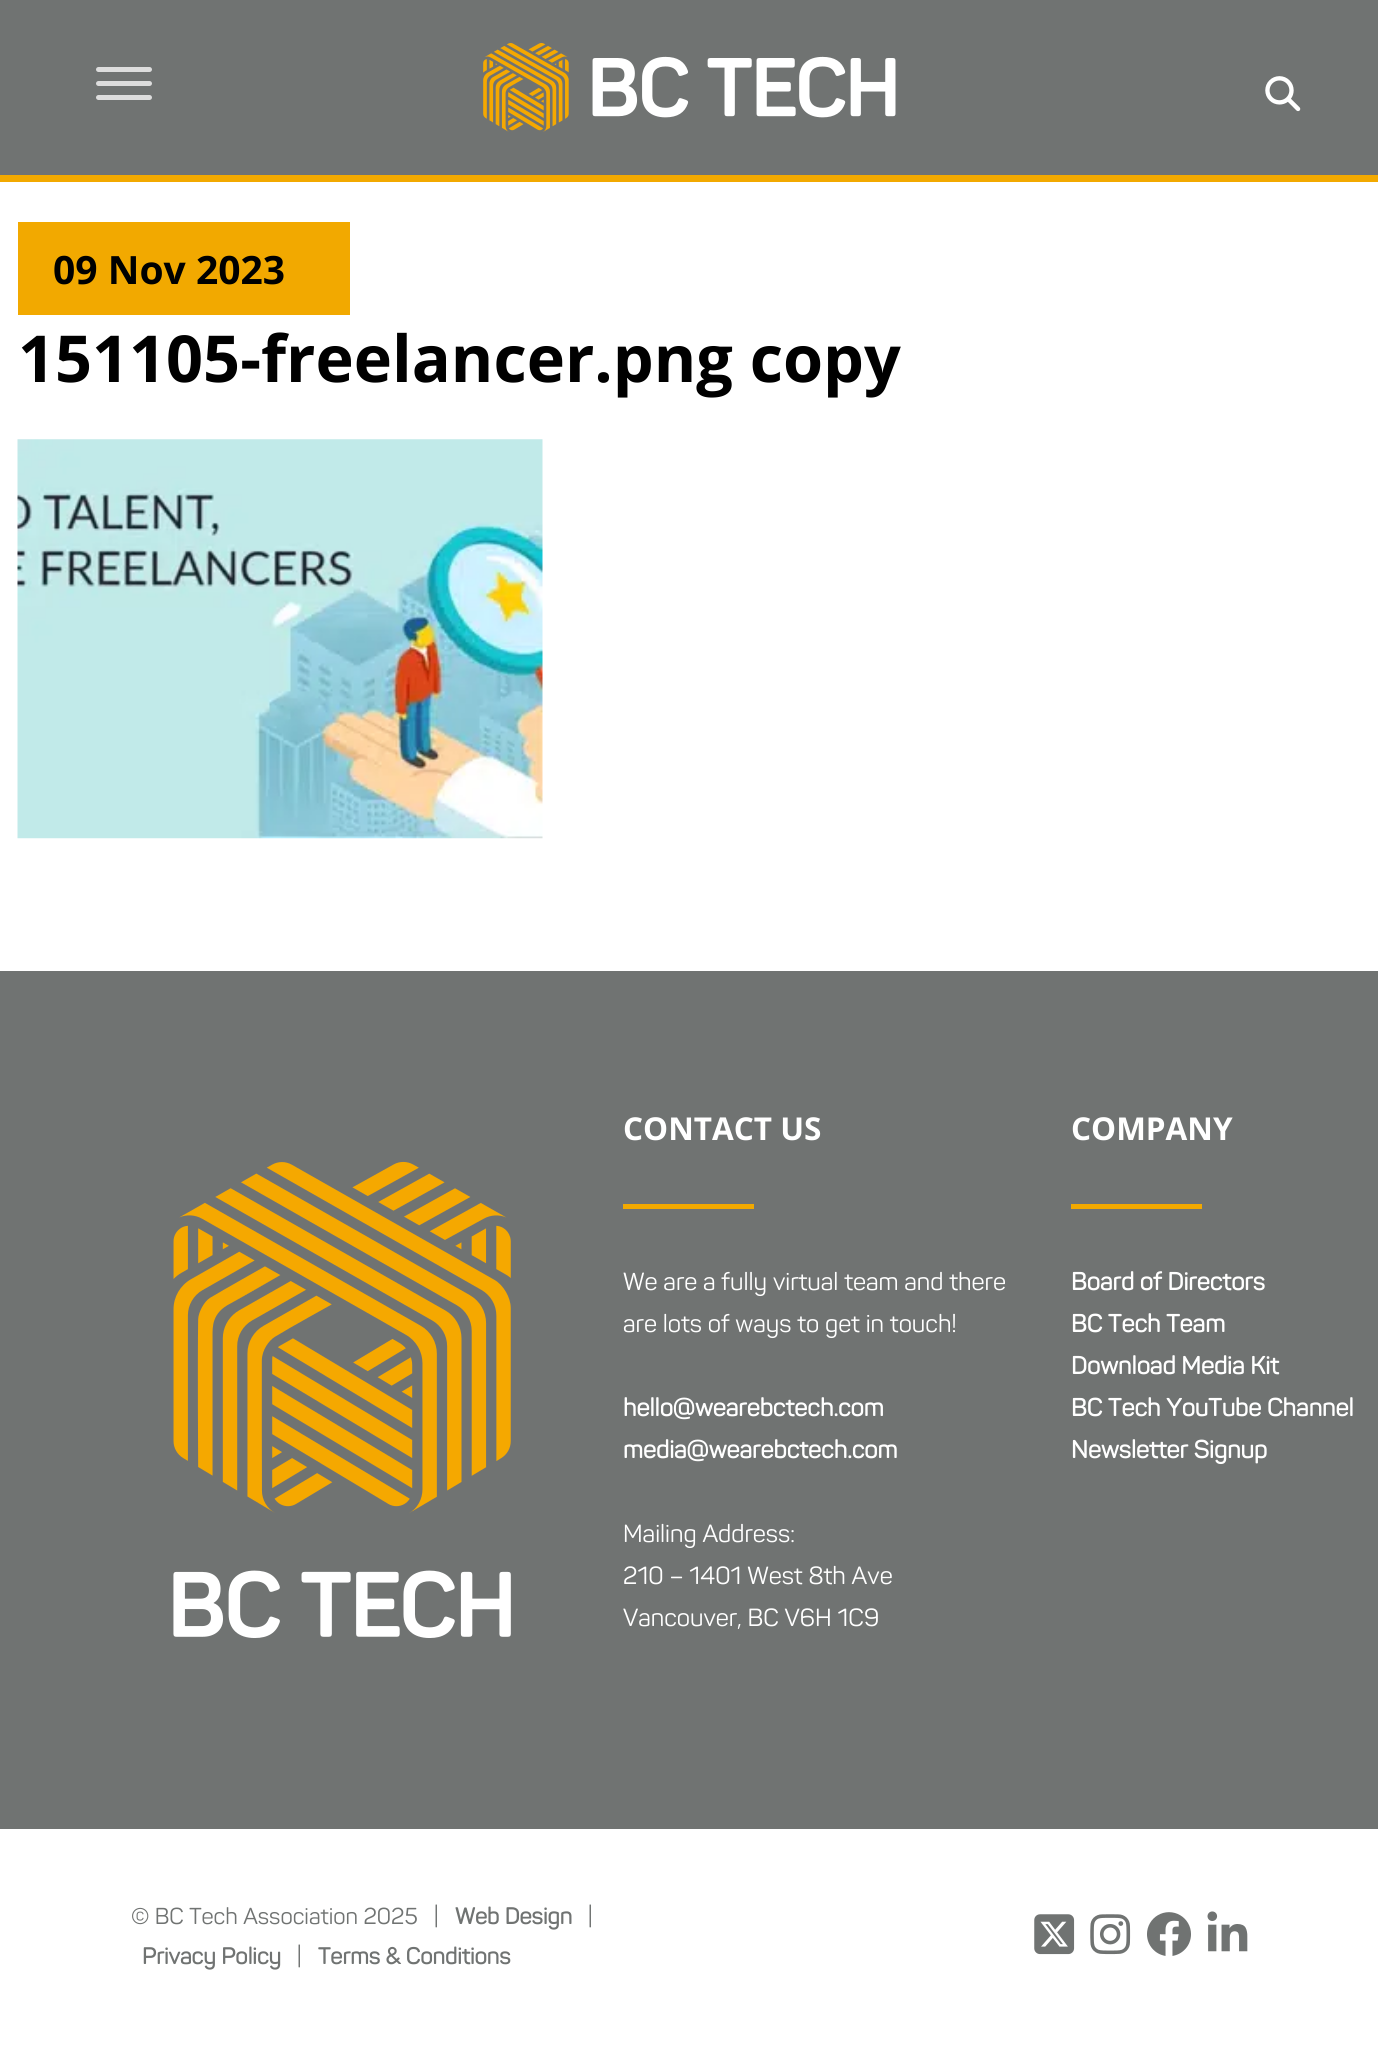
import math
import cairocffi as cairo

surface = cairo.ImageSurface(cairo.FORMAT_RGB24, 1378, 2051)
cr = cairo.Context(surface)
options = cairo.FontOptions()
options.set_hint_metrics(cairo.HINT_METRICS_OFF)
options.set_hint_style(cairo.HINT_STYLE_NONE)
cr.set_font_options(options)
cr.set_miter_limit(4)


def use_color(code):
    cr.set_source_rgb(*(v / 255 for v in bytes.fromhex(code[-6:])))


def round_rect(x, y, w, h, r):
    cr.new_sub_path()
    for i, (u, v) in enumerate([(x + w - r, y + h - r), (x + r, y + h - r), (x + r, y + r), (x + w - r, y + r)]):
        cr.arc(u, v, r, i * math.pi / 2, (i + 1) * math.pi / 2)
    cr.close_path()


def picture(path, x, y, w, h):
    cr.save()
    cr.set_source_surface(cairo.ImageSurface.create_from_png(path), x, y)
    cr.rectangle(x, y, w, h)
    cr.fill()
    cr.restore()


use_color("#ffffff")
cr.paint()
use_color("#707372")
cr.rectangle(0, 0, 1378, 175)
cr.fill()
use_color("#f2a900")
cr.rectangle(0, 175, 1378, 7)
cr.fill()
use_color("#dddddd")
round_rect(96, 67, 56, 5, 2.5)
cr.fill()
round_rect(96, 81, 56, 5, 2.5)
cr.fill()
round_rect(96, 95, 56, 5, 2.5)
cr.fill()
picture("img1.png", 483, 43, 413, 89)
picture("img2.png", 1265, 76, 36, 36)
use_color("#f2a900")
cr.rectangle(18, 222, 332, 93)
cr.fill()
cr.select_font_face("Open Sans", cairo.FONT_SLANT_NORMAL, cairo.FONT_WEIGHT_BOLD)
cr.set_font_size(39)
use_color("#000000")
cr.move_to(53, 284)
cr.show_text("09 Nov 2023")
cr.set_font_size(64.75)
cr.move_to(18, 382)
cr.show_text("151105-freelancer.png copy")
picture("img3.png", 17, 439, 526, 400)
use_color("#707372")
cr.rectangle(0, 971, 1378, 858)
cr.fill()
picture("img4.png", 173, 1161, 338, 477)
cr.set_font_size(31.5)
use_color("#ffffff")
cr.move_to(623, 1140)
cr.show_text("CONTACT US")
use_color("#f2a900")
cr.rectangle(623, 1204, 131, 5)
cr.fill()
cr.select_font_face("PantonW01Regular")
cr.set_font_size(24.5)
use_color("#ffffff")
cr.move_to(623, 1290)
cr.show_text("We are a fully virtual team and there")
cr.move_to(623, 1332)
cr.show_text("are lots of ways to get in touch!")
cr.select_font_face("PantonW01Regular", cairo.FONT_SLANT_NORMAL, cairo.FONT_WEIGHT_BOLD)
cr.move_to(623, 1416)
cr.show_text("hello@wearebctech.com")
cr.move_to(623, 1458)
cr.show_text("media@wearebctech.com")
cr.select_font_face("PantonW01Regular")
cr.move_to(623, 1542)
cr.show_text("Mailing Address:")
cr.move_to(623, 1584)
cr.show_text("210 – 1401 West 8th Ave")
cr.move_to(623, 1626)
cr.show_text("Vancouver, BC V6H 1C9")
cr.select_font_face("Open Sans", cairo.FONT_SLANT_NORMAL, cairo.FONT_WEIGHT_BOLD)
cr.set_font_size(31.5)
cr.move_to(1071, 1140)
cr.show_text("COMPANY")
use_color("#f2a900")
cr.rectangle(1071, 1204, 131, 5)
cr.fill()
cr.select_font_face("PantonW01Regular", cairo.FONT_SLANT_NORMAL, cairo.FONT_WEIGHT_BOLD)
cr.set_font_size(24.5)
use_color("#ffffff")
cr.move_to(1071, 1290)
cr.show_text("Board of Directors")
cr.move_to(1071, 1332)
cr.show_text("BC Tech Team")
cr.move_to(1071, 1374)
cr.show_text("Download Media Kit")
cr.move_to(1071, 1416)
cr.show_text("BC Tech YouTube Channel")
cr.move_to(1071, 1458)
cr.show_text("Newsletter Signup")
cr.select_font_face("PantonW01Regular")
cr.set_font_size(22.75)
use_color("#707372")
cr.move_to(131, 1924)
cr.show_text("© BC Tech Association 2025   |")
cr.select_font_face("PantonW01Regular", cairo.FONT_SLANT_NORMAL, cairo.FONT_WEIGHT_BOLD)
cr.move_to(455, 1924)
cr.show_text("Web Design")
cr.select_font_face("PantonW01Regular")
cr.move_to(588, 1924)
cr.show_text("|")
cr.select_font_face("PantonW01Regular", cairo.FONT_SLANT_NORMAL, cairo.FONT_WEIGHT_BOLD)
cr.move_to(142, 1964)
cr.show_text("Privacy Policy")
cr.select_font_face("PantonW01Regular")
cr.move_to(297, 1964)
cr.show_text("|")
cr.select_font_face("PantonW01Regular", cairo.FONT_SLANT_NORMAL, cairo.FONT_WEIGHT_BOLD)
cr.move_to(318, 1964)
cr.show_text("Terms & Conditions")
picture("img5.png", 1034, 1914, 41, 41)
picture("img6.png", 1090, 1914, 41, 41)
picture("img7.png", 1147, 1912, 44, 44)
picture("img8.png", 1207, 1911, 41, 41)
surface.write_to_png("result.png")
